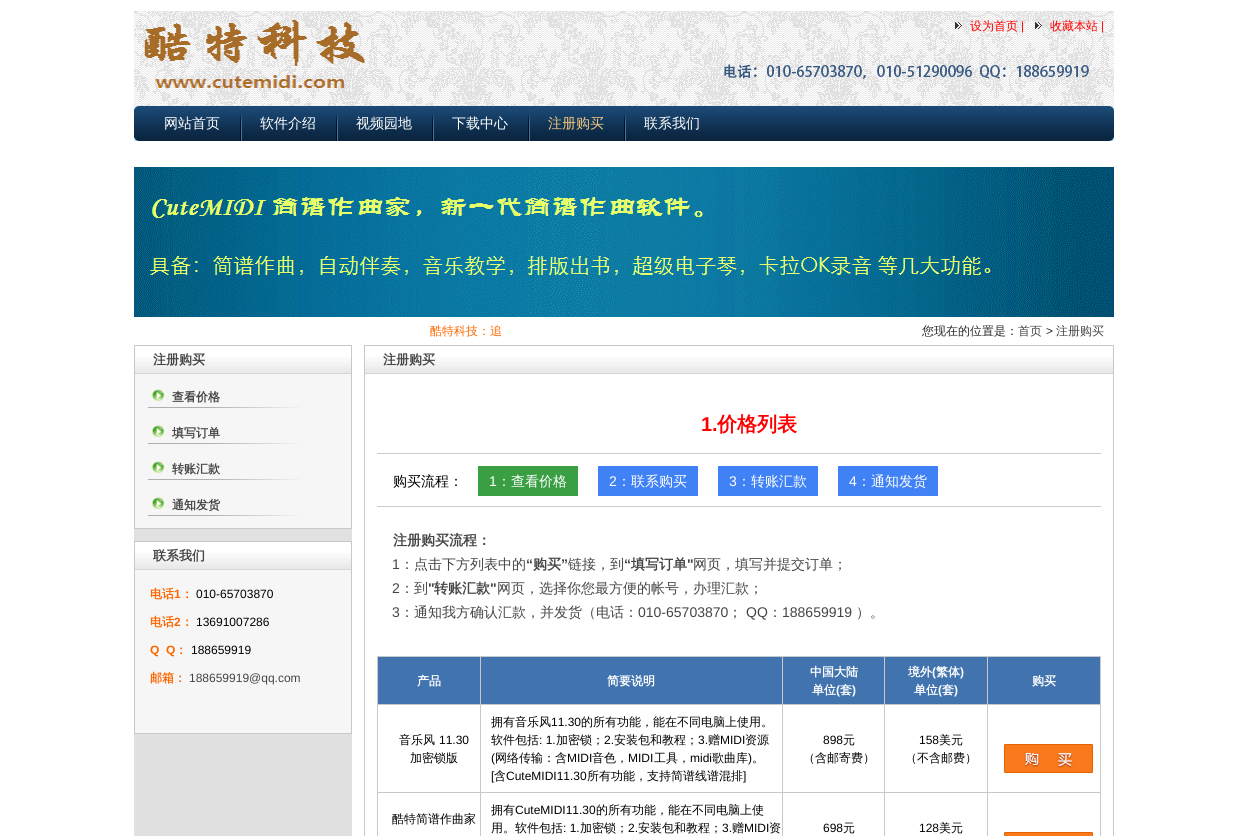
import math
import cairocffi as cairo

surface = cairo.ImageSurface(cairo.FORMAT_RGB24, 1248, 836)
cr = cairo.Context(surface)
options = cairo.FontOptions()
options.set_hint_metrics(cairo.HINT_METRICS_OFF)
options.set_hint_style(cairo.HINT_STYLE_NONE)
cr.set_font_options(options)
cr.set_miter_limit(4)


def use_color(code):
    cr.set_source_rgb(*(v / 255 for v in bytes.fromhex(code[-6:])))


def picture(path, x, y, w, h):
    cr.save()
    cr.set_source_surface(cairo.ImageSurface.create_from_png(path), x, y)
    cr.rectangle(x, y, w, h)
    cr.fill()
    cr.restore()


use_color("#ffffff")
cr.paint()
picture("img1.png", 134, 11, 980, 95)
picture("img2.png", 144, 20, 221, 68)
picture("img3.png", 955, 22, 7, 7)
cr.select_font_face("WenQuanYi Zen Hei Medium")
cr.set_font_size(12)
use_color("#ff0000")
cr.move_to(970, 30)
cr.show_text("设为首页")
cr.select_font_face("Liberation Sans")
cr.move_to(1021, 30)
cr.show_text("|")
picture("img3.png", 1035, 22, 7, 7)
cr.select_font_face("WenQuanYi Zen Hei Medium")
cr.move_to(1050, 30)
cr.show_text("收藏本站")
cr.select_font_face("Liberation Sans")
cr.move_to(1101, 30)
cr.show_text("|")
picture("img4.png", 724, 64, 365, 15)
picture("img5.png", 134, 106, 980, 35)
cr.select_font_face("WenQuanYi Zen Hei Medium")
cr.set_font_size(14)
use_color("#ffffff")
cr.move_to(164, 128)
cr.show_text("网站首页")
picture("img6.png", 240, 111, 2, 30)
cr.move_to(260, 128)
cr.show_text("软件介绍")
picture("img6.png", 336, 111, 2, 30)
cr.move_to(356, 128)
cr.show_text("视频园地")
picture("img6.png", 432, 111, 2, 30)
cr.move_to(452, 128)
cr.show_text("下载中心")
picture("img6.png", 528, 111, 2, 30)
use_color("#f5c87f")
cr.move_to(548, 128)
cr.show_text("注册购买")
picture("img6.png", 624, 111, 2, 30)
use_color("#ffffff")
cr.move_to(644, 128)
cr.show_text("联系我们")
picture("img7.png", 134, 167, 980, 150)
cr.set_font_size(12)
use_color("#ff6600")
cr.move_to(430, 335)
cr.show_text("酷特科技：追")
use_color("#282828")
cr.move_to(922, 335)
cr.show_text("您现在的位置是：")
use_color("#454545")
cr.move_to(1018, 335)
cr.show_text("首页")
cr.select_font_face("Liberation Sans")
use_color("#282828")
cr.move_to(1046, 335)
cr.show_text(">")
cr.select_font_face("WenQuanYi Zen Hei Medium")
use_color("#454545")
cr.move_to(1056, 335)
cr.show_text("注册购买")
use_color("#e1e1e1")
cr.rectangle(134, 529, 218, 307)
cr.fill()
cr.rectangle(134.5, 345.5, 217, 183)
use_color("#c8c8c8")
cr.set_line_width(1)
cr.stroke()
picture("img8.png", 135, 357, 216, 17)
cr.select_font_face("WenQuanYi Zen Hei", cairo.FONT_SLANT_NORMAL, cairo.FONT_WEIGHT_BOLD)
cr.set_font_size(13)
use_color("#454545")
cr.move_to(153, 364)
cr.show_text("注册购买")
use_color("#f6f6f6")
cr.rectangle(135, 374, 216, 154)
cr.fill()
picture("img9.png", 147, 387, 153, 21)
cr.set_font_size(12)
use_color("#454545")
cr.move_to(172, 401)
cr.show_text("查看价格")
picture("img9.png", 147, 423, 153, 21)
cr.move_to(172, 437)
cr.show_text("填写订单")
picture("img9.png", 147, 459, 153, 21)
cr.move_to(172, 473)
cr.show_text("转账汇款")
picture("img9.png", 147, 495, 153, 21)
cr.move_to(172, 509)
cr.show_text("通知发货")
cr.rectangle(134.5, 541.5, 217, 192)
use_color("#c8c8c8")
cr.stroke()
use_color("#ffffff")
cr.rectangle(135, 542, 216, 11)
cr.fill()
picture("img8.png", 135, 553, 216, 17)
cr.set_font_size(13)
use_color("#454545")
cr.move_to(153, 560)
cr.show_text("联系我们")
use_color("#f6f6f6")
cr.rectangle(135, 570, 216, 163)
cr.fill()
cr.set_font_size(12)
use_color("#ff6600")
cr.move_to(150, 598)
cr.show_text("电话")
cr.select_font_face("Liberation Sans", cairo.FONT_SLANT_NORMAL, cairo.FONT_WEIGHT_BOLD)
cr.move_to(174, 598)
cr.show_text("1")
cr.select_font_face("WenQuanYi Zen Hei", cairo.FONT_SLANT_NORMAL, cairo.FONT_WEIGHT_BOLD)
cr.move_to(181, 598)
cr.show_text("：")
cr.select_font_face("Liberation Sans")
use_color("#000000")
cr.move_to(196, 598)
cr.show_text("010-65703870")
cr.select_font_face("WenQuanYi Zen Hei", cairo.FONT_SLANT_NORMAL, cairo.FONT_WEIGHT_BOLD)
use_color("#ff6600")
cr.move_to(150, 626)
cr.show_text("电话")
cr.select_font_face("Liberation Sans", cairo.FONT_SLANT_NORMAL, cairo.FONT_WEIGHT_BOLD)
cr.move_to(174, 626)
cr.show_text("2")
cr.select_font_face("WenQuanYi Zen Hei", cairo.FONT_SLANT_NORMAL, cairo.FONT_WEIGHT_BOLD)
cr.move_to(181, 626)
cr.show_text("：")
cr.select_font_face("Liberation Sans")
use_color("#000000")
cr.move_to(196, 626)
cr.show_text("13691007286")
cr.select_font_face("Liberation Sans", cairo.FONT_SLANT_NORMAL, cairo.FONT_WEIGHT_BOLD)
use_color("#ff6600")
cr.move_to(150, 654)
cr.show_text("Q  Q")
cr.select_font_face("WenQuanYi Zen Hei", cairo.FONT_SLANT_NORMAL, cairo.FONT_WEIGHT_BOLD)
cr.move_to(175, 654)
cr.show_text("：")
cr.select_font_face("Liberation Sans")
use_color("#000000")
cr.move_to(191, 654)
cr.show_text("188659919")
cr.select_font_face("WenQuanYi Zen Hei", cairo.FONT_SLANT_NORMAL, cairo.FONT_WEIGHT_BOLD)
use_color("#ff6600")
cr.move_to(150, 682)
cr.show_text("邮箱：")
cr.select_font_face("Liberation Sans")
use_color("#454545")
cr.move_to(189, 682)
cr.show_text("188659919@qq.com")
cr.rectangle(364.5, 345.5, 749, 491)
use_color("#c8c8c8")
cr.stroke()
picture("img10.png", 365, 357, 748, 17)
cr.select_font_face("WenQuanYi Zen Hei", cairo.FONT_SLANT_NORMAL, cairo.FONT_WEIGHT_BOLD)
cr.set_font_size(13)
use_color("#454545")
cr.move_to(383, 364)
cr.show_text("注册购买")
cr.select_font_face("Liberation Sans", cairo.FONT_SLANT_NORMAL, cairo.FONT_WEIGHT_BOLD)
cr.set_font_size(20)
use_color("#ff0000")
cr.move_to(701, 431)
cr.show_text("1.")
cr.select_font_face("WenQuanYi Zen Hei", cairo.FONT_SLANT_NORMAL, cairo.FONT_WEIGHT_BOLD)
cr.move_to(717, 431)
cr.show_text("价格列表")
use_color("#cccccc")
cr.rectangle(377, 453, 724, 1)
cr.fill()
cr.select_font_face("WenQuanYi Zen Hei Medium")
cr.set_font_size(14)
use_color("#000000")
cr.move_to(393, 486)
cr.show_text("购买流程：")
use_color("#3a9f43")
cr.rectangle(478, 466, 100, 30)
cr.fill()
cr.select_font_face("Liberation Sans")
use_color("#ffffff")
cr.move_to(489, 486)
cr.show_text("1")
cr.select_font_face("WenQuanYi Zen Hei Medium")
cr.move_to(497, 486)
cr.show_text("：查看价格")
use_color("#4082f5")
cr.rectangle(598, 466, 100, 30)
cr.fill()
cr.select_font_face("Liberation Sans")
use_color("#ffffff")
cr.move_to(609, 486)
cr.show_text("2")
cr.select_font_face("WenQuanYi Zen Hei Medium")
cr.move_to(617, 486)
cr.show_text("：联系购买")
use_color("#4082f5")
cr.rectangle(718, 466, 100, 30)
cr.fill()
cr.select_font_face("Liberation Sans")
use_color("#ffffff")
cr.move_to(729, 486)
cr.show_text("3")
cr.select_font_face("WenQuanYi Zen Hei Medium")
cr.move_to(737, 486)
cr.show_text("：转账汇款")
use_color("#4082f5")
cr.rectangle(838, 466, 100, 30)
cr.fill()
cr.select_font_face("Liberation Sans")
use_color("#ffffff")
cr.move_to(849, 486)
cr.show_text("4")
cr.select_font_face("WenQuanYi Zen Hei Medium")
cr.move_to(857, 486)
cr.show_text("：通知发货")
use_color("#cccccc")
cr.rectangle(377, 506, 724, 1)
cr.fill()
cr.select_font_face("WenQuanYi Zen Hei", cairo.FONT_SLANT_NORMAL, cairo.FONT_WEIGHT_BOLD)
use_color("#454545")
cr.move_to(393, 545)
cr.show_text("注册购买流程：")
cr.select_font_face("Liberation Sans")
cr.move_to(392, 569)
cr.show_text("1")
cr.select_font_face("WenQuanYi Zen Hei Medium")
cr.move_to(400, 569)
cr.show_text("：点击下方列表中的")
cr.select_font_face("Liberation Sans", cairo.FONT_SLANT_NORMAL, cairo.FONT_WEIGHT_BOLD)
cr.move_to(526, 569)
cr.show_text("“")
cr.select_font_face("WenQuanYi Zen Hei", cairo.FONT_SLANT_NORMAL, cairo.FONT_WEIGHT_BOLD)
cr.move_to(533, 569)
cr.show_text("购买")
cr.select_font_face("Liberation Sans", cairo.FONT_SLANT_NORMAL, cairo.FONT_WEIGHT_BOLD)
cr.move_to(561, 569)
cr.show_text("”")
cr.select_font_face("WenQuanYi Zen Hei Medium")
cr.move_to(568, 569)
cr.show_text("链接，到")
cr.select_font_face("Liberation Sans", cairo.FONT_SLANT_NORMAL, cairo.FONT_WEIGHT_BOLD)
cr.move_to(624, 569)
cr.show_text("“")
cr.select_font_face("WenQuanYi Zen Hei", cairo.FONT_SLANT_NORMAL, cairo.FONT_WEIGHT_BOLD)
cr.move_to(631, 569)
cr.show_text("填写订单")
cr.select_font_face("Liberation Sans", cairo.FONT_SLANT_NORMAL, cairo.FONT_WEIGHT_BOLD)
cr.move_to(687, 569)
cr.show_text("\"")
cr.select_font_face("WenQuanYi Zen Hei Medium")
cr.move_to(693, 569)
cr.show_text("网页，填写并提交订单；")
cr.select_font_face("Liberation Sans")
cr.move_to(392, 593)
cr.show_text("2")
cr.select_font_face("WenQuanYi Zen Hei Medium")
cr.move_to(400, 593)
cr.show_text("：到")
cr.select_font_face("Liberation Sans", cairo.FONT_SLANT_NORMAL, cairo.FONT_WEIGHT_BOLD)
cr.move_to(428, 593)
cr.show_text("\"")
cr.select_font_face("WenQuanYi Zen Hei", cairo.FONT_SLANT_NORMAL, cairo.FONT_WEIGHT_BOLD)
cr.move_to(434, 593)
cr.show_text("转账汇款")
cr.select_font_face("Liberation Sans", cairo.FONT_SLANT_NORMAL, cairo.FONT_WEIGHT_BOLD)
cr.move_to(490, 593)
cr.show_text("\"")
cr.select_font_face("WenQuanYi Zen Hei Medium")
cr.move_to(497, 593)
cr.show_text("网页，选择你您最方便的帐号，办理汇款；")
cr.select_font_face("Liberation Sans")
cr.move_to(392, 617)
cr.show_text("3")
cr.select_font_face("WenQuanYi Zen Hei Medium")
cr.move_to(400, 617)
cr.show_text("：通知我方确认汇款，并发货（电话：")
cr.select_font_face("Liberation Sans")
cr.move_to(638, 617)
cr.show_text("010-65703870")
cr.select_font_face("WenQuanYi Zen Hei Medium")
cr.move_to(728, 617)
cr.show_text("；")
cr.select_font_face("Liberation Sans")
cr.move_to(746, 617)
cr.show_text("QQ")
cr.select_font_face("WenQuanYi Zen Hei Medium")
cr.move_to(768, 617)
cr.show_text("：")
cr.select_font_face("Liberation Sans")
cr.move_to(782, 617)
cr.show_text("188659919")
cr.select_font_face("WenQuanYi Zen Hei Medium")
cr.move_to(856, 617)
cr.show_text("）。")
use_color("#4173ae")
cr.rectangle(378, 657, 102, 47)
cr.fill()
use_color("#c8c8c8")
cr.rectangle(987, 656, 114, 1)
cr.fill()
cr.rectangle(987, 704, 114, 1)
cr.fill()
cr.rectangle(987, 792, 114, 1)
cr.fill()
cr.rectangle(987, 792, 1, 44)
cr.fill()
cr.rectangle(884, 792, 104, 1)
cr.fill()
cr.rectangle(987, 704, 1, 89)
cr.fill()
cr.rectangle(884, 704, 104, 1)
cr.fill()
cr.rectangle(987, 656, 1, 49)
cr.fill()
cr.rectangle(884, 656, 104, 1)
cr.fill()
cr.rectangle(884, 792, 1, 44)
cr.fill()
cr.rectangle(782, 792, 103, 1)
cr.fill()
cr.rectangle(884, 704, 1, 89)
cr.fill()
cr.rectangle(782, 704, 103, 1)
cr.fill()
cr.rectangle(884, 656, 1, 49)
cr.fill()
cr.rectangle(782, 656, 103, 1)
cr.fill()
cr.rectangle(782, 792, 1, 44)
cr.fill()
cr.rectangle(480, 792, 303, 1)
cr.fill()
cr.rectangle(782, 704, 1, 89)
cr.fill()
cr.rectangle(480, 704, 303, 1)
cr.fill()
cr.rectangle(782, 656, 1, 49)
cr.fill()
cr.rectangle(480, 656, 303, 1)
cr.fill()
cr.rectangle(480, 792, 1, 44)
cr.fill()
cr.rectangle(377, 792, 104, 1)
cr.fill()
cr.rectangle(480, 704, 1, 89)
cr.fill()
cr.rectangle(377, 704, 104, 1)
cr.fill()
cr.rectangle(480, 656, 1, 49)
cr.fill()
cr.rectangle(377, 656, 104, 1)
cr.fill()
cr.rectangle(377, 792, 1, 44)
cr.fill()
cr.rectangle(377, 704, 1, 89)
cr.fill()
cr.rectangle(377, 656, 1, 49)
cr.fill()
cr.select_font_face("WenQuanYi Zen Hei", cairo.FONT_SLANT_NORMAL, cairo.FONT_WEIGHT_BOLD)
cr.set_font_size(12)
use_color("#ffffff")
cr.move_to(417, 685)
cr.show_text("产品")
use_color("#4173ae")
cr.rectangle(481, 657, 301, 47)
cr.fill()
use_color("#ffffff")
cr.move_to(607, 685)
cr.show_text("简要说明")
use_color("#4173ae")
cr.rectangle(783, 657, 101, 47)
cr.fill()
use_color("#ffffff")
cr.move_to(810, 676)
cr.show_text("中国大陆")
cr.move_to(812, 694)
cr.show_text("单位")
cr.select_font_face("Liberation Sans", cairo.FONT_SLANT_NORMAL, cairo.FONT_WEIGHT_BOLD)
cr.move_to(836, 694)
cr.show_text("(")
cr.select_font_face("WenQuanYi Zen Hei", cairo.FONT_SLANT_NORMAL, cairo.FONT_WEIGHT_BOLD)
cr.move_to(840, 694)
cr.show_text("套")
cr.select_font_face("Liberation Sans", cairo.FONT_SLANT_NORMAL, cairo.FONT_WEIGHT_BOLD)
cr.move_to(852, 694)
cr.show_text(")")
use_color("#4173ae")
cr.rectangle(885, 657, 102, 47)
cr.fill()
cr.select_font_face("WenQuanYi Zen Hei", cairo.FONT_SLANT_NORMAL, cairo.FONT_WEIGHT_BOLD)
use_color("#ffffff")
cr.move_to(908, 676)
cr.show_text("境外")
cr.select_font_face("Liberation Sans", cairo.FONT_SLANT_NORMAL, cairo.FONT_WEIGHT_BOLD)
cr.move_to(932, 676)
cr.show_text("(")
cr.select_font_face("WenQuanYi Zen Hei", cairo.FONT_SLANT_NORMAL, cairo.FONT_WEIGHT_BOLD)
cr.move_to(936, 676)
cr.show_text("繁体")
cr.select_font_face("Liberation Sans", cairo.FONT_SLANT_NORMAL, cairo.FONT_WEIGHT_BOLD)
cr.move_to(960, 676)
cr.show_text(")")
cr.select_font_face("WenQuanYi Zen Hei", cairo.FONT_SLANT_NORMAL, cairo.FONT_WEIGHT_BOLD)
cr.move_to(914, 694)
cr.show_text("单位")
cr.select_font_face("Liberation Sans", cairo.FONT_SLANT_NORMAL, cairo.FONT_WEIGHT_BOLD)
cr.move_to(938, 694)
cr.show_text("(")
cr.select_font_face("WenQuanYi Zen Hei", cairo.FONT_SLANT_NORMAL, cairo.FONT_WEIGHT_BOLD)
cr.move_to(942, 694)
cr.show_text("套")
cr.select_font_face("Liberation Sans", cairo.FONT_SLANT_NORMAL, cairo.FONT_WEIGHT_BOLD)
cr.move_to(954, 694)
cr.show_text(")")
use_color("#4173ae")
cr.rectangle(988, 657, 112, 47)
cr.fill()
use_color("#c8c8c8")
cr.rectangle(1100, 792, 1, 44)
cr.fill()
cr.rectangle(1100, 704, 1, 89)
cr.fill()
cr.rectangle(1100, 656, 1, 49)
cr.fill()
cr.select_font_face("WenQuanYi Zen Hei", cairo.FONT_SLANT_NORMAL, cairo.FONT_WEIGHT_BOLD)
use_color("#ffffff")
cr.move_to(1032, 685)
cr.show_text("购买")
cr.select_font_face("WenQuanYi Zen Hei Medium")
use_color("#000000")
cr.move_to(399, 744)
cr.show_text("音乐风")
cr.select_font_face("Liberation Sans")
cr.move_to(439, 744)
cr.show_text("11.30")
cr.select_font_face("WenQuanYi Zen Hei Medium")
cr.move_to(410, 762)
cr.show_text("加密锁版")
cr.move_to(491, 726)
cr.show_text("拥有音乐风")
cr.select_font_face("Liberation Sans")
cr.move_to(551, 726)
cr.show_text("11.30")
cr.select_font_face("WenQuanYi Zen Hei Medium")
cr.move_to(581, 726)
cr.show_text("的所有功能，能在不同电脑上使用。")
cr.move_to(491, 744)
cr.show_text("软件包括")
cr.select_font_face("Liberation Sans")
cr.move_to(539, 744)
cr.show_text(": 1.")
cr.select_font_face("WenQuanYi Zen Hei Medium")
cr.move_to(556, 744)
cr.show_text("加密锁；")
cr.select_font_face("Liberation Sans")
cr.move_to(604, 744)
cr.show_text("2.")
cr.select_font_face("WenQuanYi Zen Hei Medium")
cr.move_to(614, 744)
cr.show_text("安装包和教程；")
cr.select_font_face("Liberation Sans")
cr.move_to(698, 744)
cr.show_text("3.")
cr.select_font_face("WenQuanYi Zen Hei Medium")
cr.move_to(708, 744)
cr.show_text("赠")
cr.select_font_face("Liberation Sans")
cr.move_to(720, 744)
cr.show_text("MIDI")
cr.select_font_face("WenQuanYi Zen Hei Medium")
cr.move_to(745, 744)
cr.show_text("资源")
cr.select_font_face("Liberation Sans")
cr.move_to(491, 762)
cr.show_text("(")
cr.select_font_face("WenQuanYi Zen Hei Medium")
cr.move_to(495, 762)
cr.show_text("网络传输：含")
cr.select_font_face("Liberation Sans")
cr.move_to(567, 762)
cr.show_text("MIDI")
cr.select_font_face("WenQuanYi Zen Hei Medium")
cr.move_to(592, 762)
cr.show_text("音色，")
cr.select_font_face("Liberation Sans")
cr.move_to(628, 762)
cr.show_text("MIDI")
cr.select_font_face("WenQuanYi Zen Hei Medium")
cr.move_to(654, 762)
cr.show_text("工具，")
cr.select_font_face("Liberation Sans")
cr.move_to(690, 762)
cr.show_text("midi")
cr.select_font_face("WenQuanYi Zen Hei Medium")
cr.move_to(712, 762)
cr.show_text("歌曲库")
cr.select_font_face("Liberation Sans")
cr.move_to(748, 762)
cr.show_text(")")
cr.select_font_face("WenQuanYi Zen Hei Medium")
cr.move_to(752, 762)
cr.show_text("。")
cr.select_font_face("Liberation Sans")
cr.move_to(491, 780)
cr.show_text("[")
cr.select_font_face("WenQuanYi Zen Hei Medium")
cr.move_to(494, 780)
cr.show_text("含")
cr.select_font_face("Liberation Sans")
cr.move_to(506, 780)
cr.show_text("CuteMIDI11.30")
cr.select_font_face("WenQuanYi Zen Hei Medium")
cr.move_to(587, 780)
cr.show_text("所有功能，支持简谱线谱混排")
cr.select_font_face("Liberation Sans")
cr.move_to(743, 780)
cr.show_text("]")
cr.move_to(823, 744)
cr.show_text("898")
cr.select_font_face("WenQuanYi Zen Hei Medium")
cr.move_to(843, 744)
cr.show_text("元")
cr.move_to(803, 762)
cr.show_text("（含邮寄费）")
cr.select_font_face("Liberation Sans")
cr.move_to(919, 744)
cr.show_text("158")
cr.select_font_face("WenQuanYi Zen Hei Medium")
cr.move_to(939, 744)
cr.show_text("美元")
cr.move_to(905, 762)
cr.show_text("（不含邮费）")
picture("img11.png", 1004, 744, 89, 29)
cr.move_to(392, 823)
cr.show_text("酷特简谱作曲家")
cr.move_to(491, 814)
cr.show_text("拥有")
cr.select_font_face("Liberation Sans")
cr.move_to(515, 814)
cr.show_text("CuteMIDI11.30")
cr.select_font_face("WenQuanYi Zen Hei Medium")
cr.move_to(596, 814)
cr.show_text("的所有功能，能在不同电脑上使")
cr.move_to(491, 832)
cr.show_text("用。软件包括")
cr.select_font_face("Liberation Sans")
cr.move_to(563, 832)
cr.show_text(": 1.")
cr.select_font_face("WenQuanYi Zen Hei Medium")
cr.move_to(580, 832)
cr.show_text("加密锁；")
cr.select_font_face("Liberation Sans")
cr.move_to(628, 832)
cr.show_text("2.")
cr.select_font_face("WenQuanYi Zen Hei Medium")
cr.move_to(638, 832)
cr.show_text("安装包和教程；")
cr.select_font_face("Liberation Sans")
cr.move_to(722, 832)
cr.show_text("3.")
cr.select_font_face("WenQuanYi Zen Hei Medium")
cr.move_to(732, 832)
cr.show_text("赠")
cr.select_font_face("Liberation Sans")
cr.move_to(744, 832)
cr.show_text("MIDI")
cr.select_font_face("WenQuanYi Zen Hei Medium")
cr.move_to(769, 832)
cr.show_text("资")
picture("img12.png", 1004, 832, 89, 4)
cr.select_font_face("Liberation Sans")
cr.move_to(823, 832)
cr.show_text("698")
cr.select_font_face("WenQuanYi Zen Hei Medium")
cr.move_to(843, 832)
cr.show_text("元")
cr.select_font_face("Liberation Sans")
cr.move_to(919, 832)
cr.show_text("128")
cr.select_font_face("WenQuanYi Zen Hei Medium")
cr.move_to(939, 832)
cr.show_text("美元")
surface.write_to_png("result.png")
